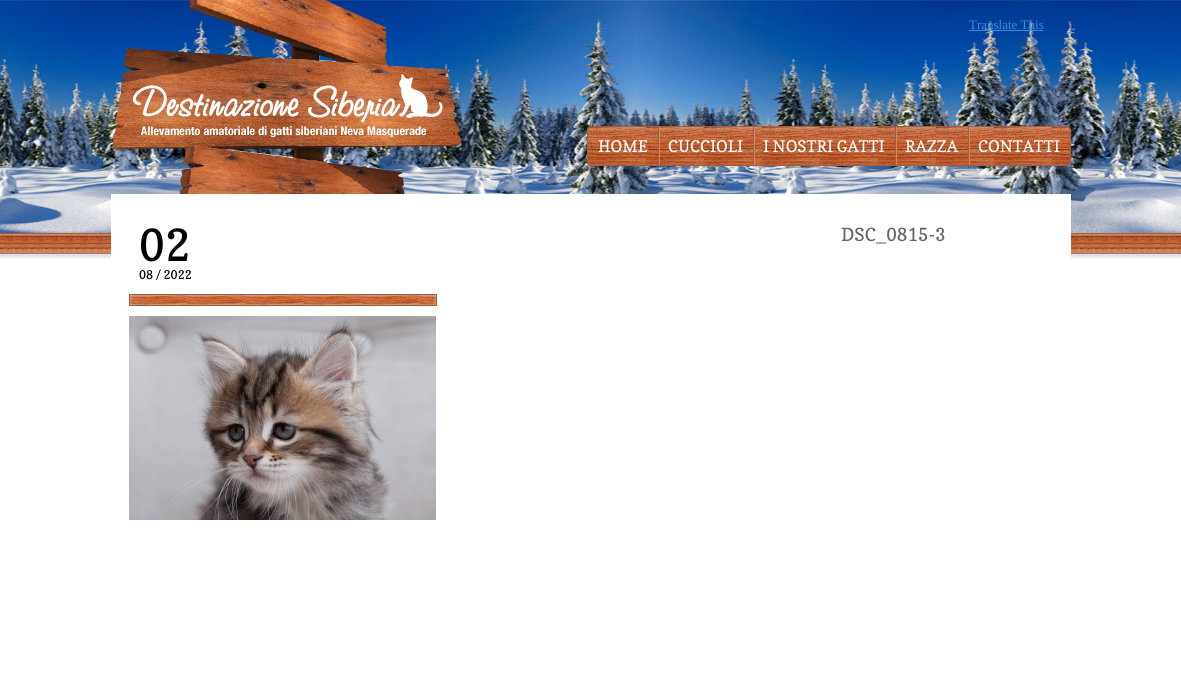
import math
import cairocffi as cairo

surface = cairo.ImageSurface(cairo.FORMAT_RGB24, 1181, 700)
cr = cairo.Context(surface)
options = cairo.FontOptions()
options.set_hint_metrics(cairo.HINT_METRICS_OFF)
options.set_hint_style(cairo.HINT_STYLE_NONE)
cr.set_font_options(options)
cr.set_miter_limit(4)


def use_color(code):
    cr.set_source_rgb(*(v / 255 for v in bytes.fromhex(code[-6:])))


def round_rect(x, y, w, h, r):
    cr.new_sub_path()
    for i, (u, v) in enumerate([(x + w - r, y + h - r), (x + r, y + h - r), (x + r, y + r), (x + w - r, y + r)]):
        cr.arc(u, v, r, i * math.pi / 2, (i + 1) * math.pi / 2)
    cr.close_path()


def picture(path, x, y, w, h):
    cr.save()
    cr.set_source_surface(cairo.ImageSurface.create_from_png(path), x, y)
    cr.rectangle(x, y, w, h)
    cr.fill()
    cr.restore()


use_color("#ffffff")
cr.paint()
picture("img1.png", 0, 233, 1181, 26)
picture("img2.png", 0, 0, 1181, 233)
picture("img3.png", 113, 0, 349, 194)
cr.select_font_face("Liberation Serif")
cr.set_font_size(13)
use_color("#308fdc")
cr.move_to(969, 29)
cr.show_text("Translate This")
cr.rectangle(969, 30, 74, 1)
cr.fill()
picture("img4.png", 587, 126, 484, 40)
round_rect(587.5, 126.5, 483, 39, 4.5)
use_color("#a25e42")
cr.set_line_width(1)
cr.stroke()
cr.select_font_face("Copse")
cr.set_font_size(16)
use_color("#ffffff")
cr.move_to(598, 152)
cr.show_text("HOME")
picture("img5.png", 658, 127, 2, 38)
cr.move_to(668, 152)
cr.show_text("CUCCIOLI")
picture("img5.png", 753, 127, 2, 38)
cr.move_to(763, 152)
cr.show_text("I NOSTRI GATTI")
picture("img5.png", 895, 127, 2, 38)
cr.move_to(905, 152)
cr.show_text("RAZZA")
picture("img5.png", 968, 127, 2, 38)
cr.move_to(978, 152)
cr.show_text("CONTATTI")
cr.rectangle(111, 194, 960, 65)
cr.fill()
picture("img6.png", 129, 294, 308, 12)
cr.set_font_size(44)
use_color("#000000")
cr.move_to(139, 261)
cr.show_text("02")
cr.set_font_size(12)
cr.move_to(139, 279)
cr.show_text("08 / 2022")
cr.set_font_size(18)
use_color("#666666")
cr.move_to(841, 241)
cr.show_text("DSC_0815-3")
picture("img7.png", 129, 316, 307, 204)
surface.write_to_png("result.png")
